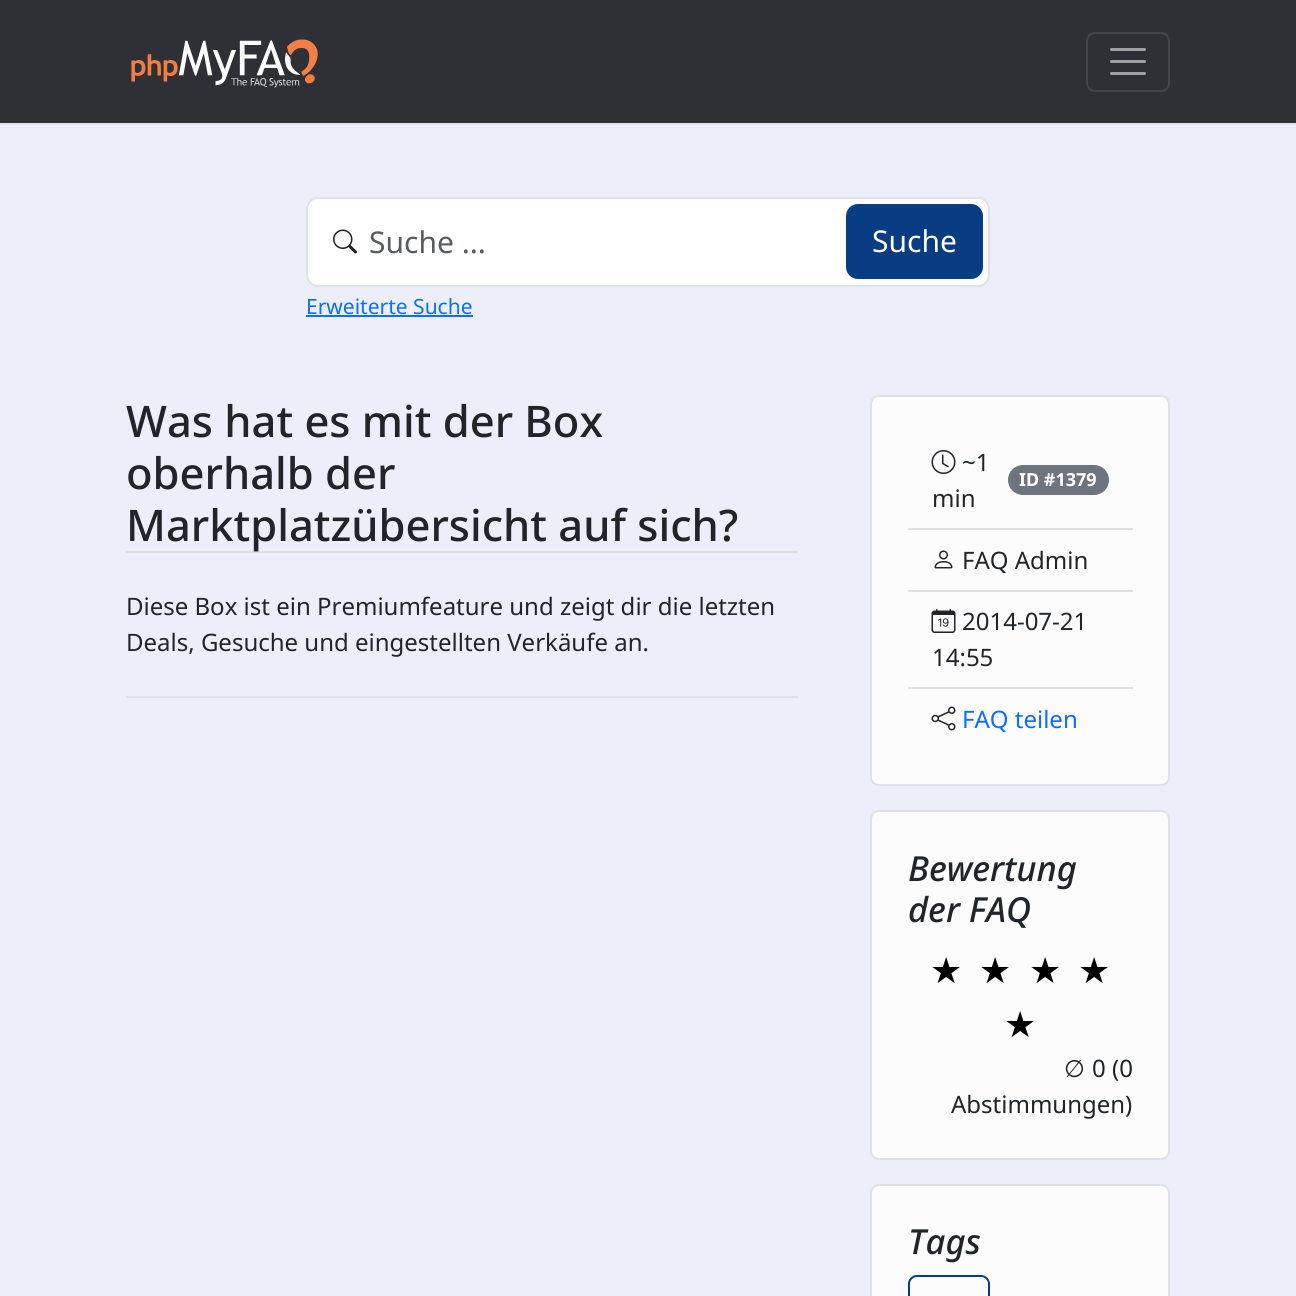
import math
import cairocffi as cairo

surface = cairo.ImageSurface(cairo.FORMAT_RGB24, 1296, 1296)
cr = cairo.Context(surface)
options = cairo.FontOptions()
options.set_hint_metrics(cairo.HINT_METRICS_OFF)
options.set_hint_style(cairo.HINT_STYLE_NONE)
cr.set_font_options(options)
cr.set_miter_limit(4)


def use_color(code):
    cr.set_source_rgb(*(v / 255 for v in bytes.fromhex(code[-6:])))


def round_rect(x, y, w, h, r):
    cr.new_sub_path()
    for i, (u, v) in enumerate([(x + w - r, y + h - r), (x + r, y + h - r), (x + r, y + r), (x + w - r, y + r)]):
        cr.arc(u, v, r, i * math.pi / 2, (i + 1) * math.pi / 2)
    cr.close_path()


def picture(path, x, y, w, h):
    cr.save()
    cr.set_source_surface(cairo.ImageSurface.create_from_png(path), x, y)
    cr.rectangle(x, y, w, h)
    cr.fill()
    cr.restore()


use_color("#eceff9")
cr.paint()
use_color("#2f3035")
cr.rectangle(0, 0, 1296, 123)
cr.fill()
use_color("#dee2e6")
cr.rectangle(0, 123, 1296, 2)
cr.fill()
picture("img1.png", 131, 39, 187, 49)
round_rect(1087, 33, 82, 58, 8)
use_color("#444549")
cr.stroke()
cr.new_path()
cr.move_to(1111.5, 49.5)
cr.line_to(1144.5, 49.5)
cr.move_to(1111.5, 61.5)
cr.line_to(1144.5, 61.5)
cr.move_to(1111.5, 73.5)
cr.line_to(1144.5, 73.5)
use_color("#a1a2a4")
cr.set_line_width(3)
cr.set_line_cap(cairo.LINE_CAP_ROUND)
cr.stroke()
use_color("#ffffff")
round_rect(307, 198, 682, 88, 11)
cr.fill_preserve()
use_color("#dee2e6")
cr.set_line_width(2)
cr.set_line_cap(cairo.LINE_CAP_BUTT)
cr.stroke()
picture("img2.png", 333, 229, 24, 25)
cr.select_font_face("Noto Sans")
cr.set_font_size(30)
use_color("#595c5f")
cr.move_to(369, 253)
cr.show_text("Suche ...")
use_color("#083c83")
round_rect(847, 205, 135, 73, 11)
cr.fill_preserve()
cr.stroke()
use_color("#ffffff")
cr.move_to(872, 252)
cr.show_text("Suche")
cr.set_font_size(21)
use_color("#0d6efd")
cr.move_to(306, 314)
cr.show_text("Erweiterte Suche")
cr.rectangle(306, 315, 167, 2)
cr.fill()
use_color("#dee2e6")
cr.rectangle(126, 551, 672, 2)
cr.fill()
cr.select_font_face("Noto Sans Medium")
cr.set_font_size(43.5)
use_color("#212529")
cr.move_to(126, 437)
cr.show_text("Was hat es mit der Box")
cr.move_to(126, 489)
cr.show_text("oberhalb der")
cr.move_to(126, 541)
cr.show_text("Marktplatzübersicht auf sich?")
use_color("#dee2e6")
cr.rectangle(126, 696, 672, 2)
cr.fill()
cr.select_font_face("Noto Sans")
cr.set_font_size(24)
use_color("#212529")
cr.move_to(126, 615)
cr.show_text("Diese Box ist ein Premiumfeature und zeigt dir die letzten")
cr.move_to(126, 651)
cr.show_text("Deals, Gesuche und eingestellten Verkäufe an.")
use_color("#fcfcfd")
round_rect(871, 396, 298, 389, 8)
cr.fill_preserve()
use_color("#dee2e6")
cr.stroke()
cr.rectangle(908, 528, 225, 2)
cr.fill()
picture("img3.png", 931, 450, 25, 24)
use_color("#212529")
cr.move_to(962, 471)
cr.show_text("~1")
cr.move_to(932, 507)
cr.show_text("min")
use_color("#6c757d")
round_rect(1008, 465, 101, 30, 15)
cr.fill()
cr.select_font_face("Noto Sans", cairo.FONT_SLANT_NORMAL, cairo.FONT_WEIGHT_BOLD)
cr.set_font_size(18)
use_color("#ffffff")
cr.move_to(1019, 486)
cr.show_text("ID #1379")
use_color("#dee2e6")
cr.rectangle(908, 590, 225, 2)
cr.fill()
picture("img4.png", 934, 550, 19, 19)
cr.select_font_face("Noto Sans")
cr.set_font_size(24)
use_color("#212529")
cr.move_to(962, 569)
cr.show_text("FAQ Admin")
use_color("#dee2e6")
cr.rectangle(908, 687, 225, 2)
cr.fill()
picture("img5.png", 931, 609, 25, 24)
use_color("#212529")
cr.move_to(962, 630)
cr.show_text("2014-07-21")
cr.move_to(932, 666)
cr.show_text("14:55")
picture("img6.png", 931, 706, 25, 25)
use_color("#0d6efd")
cr.move_to(962, 728)
cr.show_text("FAQ teilen")
use_color("#fcfcfd")
round_rect(871, 811, 298, 348, 8)
cr.fill_preserve()
use_color("#dee2e6")
cr.stroke()
cr.select_font_face("Noto Sans Medium", cairo.FONT_SLANT_ITALIC)
cr.set_font_size(34.5)
use_color("#212529")
cr.move_to(908, 881)
cr.show_text("Bewertung")
cr.move_to(908, 922)
cr.show_text("der FAQ")
cr.select_font_face("DejaVu Sans")
cr.set_font_size(36)
use_color("#000000")
cr.move_to(930, 983)
cr.show_text("★")
cr.move_to(979, 983)
cr.show_text("★")
cr.move_to(1029, 983)
cr.show_text("★")
cr.move_to(1078, 983)
cr.show_text("★")
cr.move_to(1004, 1037)
cr.show_text("★")
cr.set_font_size(24)
use_color("#212529")
cr.move_to(1064, 1077)
cr.show_text("∅")
cr.select_font_face("Noto Sans")
cr.move_to(1092, 1077)
cr.show_text("0 (0")
cr.move_to(951, 1113)
cr.show_text("Abstimmungen)")
use_color("#fcfcfd")
round_rect(871, 1185, 298, 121, 8)
cr.fill_preserve()
use_color("#dee2e6")
cr.stroke()
cr.select_font_face("Noto Sans Medium", cairo.FONT_SLANT_ITALIC)
cr.set_font_size(34.5)
use_color("#212529")
cr.move_to(908, 1254)
cr.show_text("Tags")
round_rect(909, 1276, 80, 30, 8)
use_color("#083c83")
cr.stroke()
surface.write_to_png("result.png")
